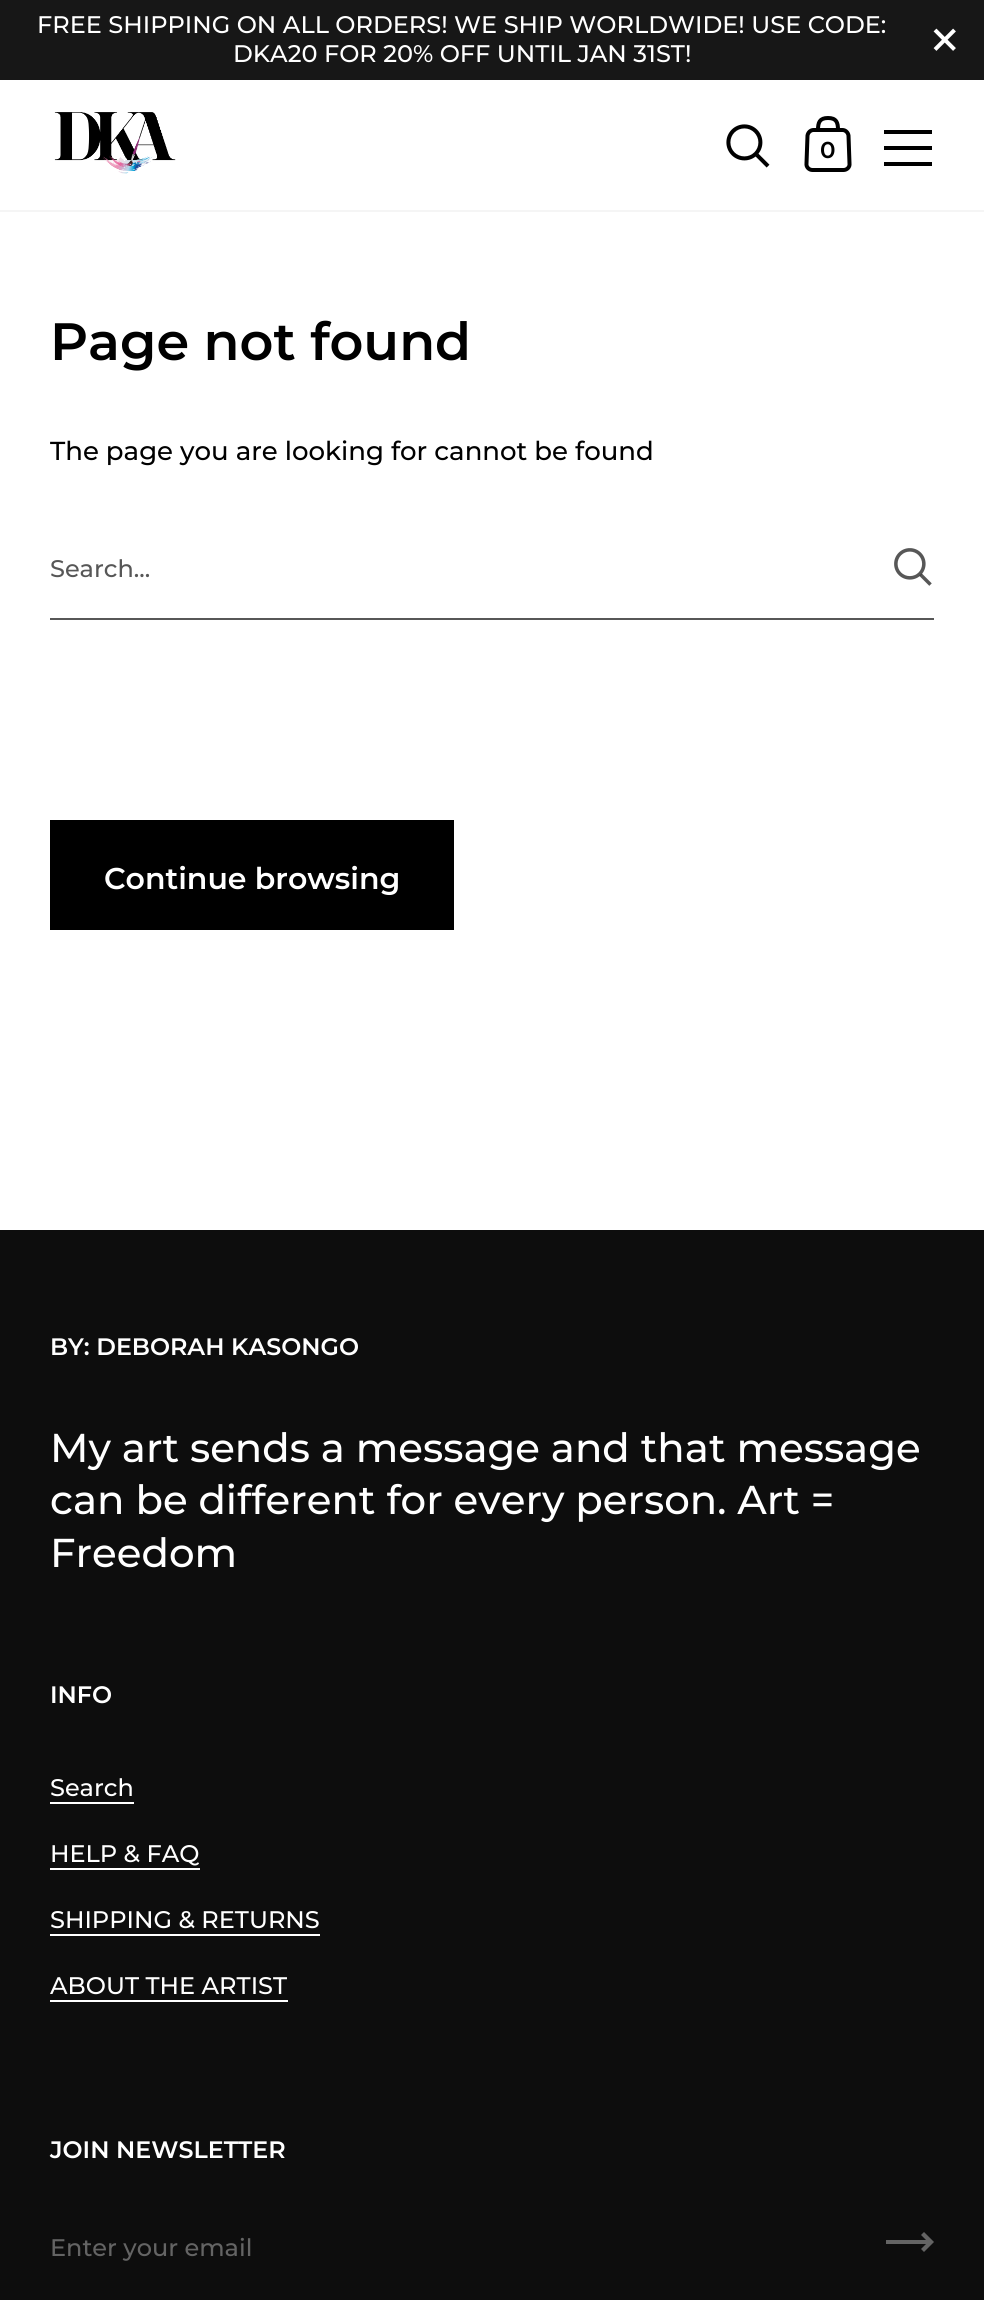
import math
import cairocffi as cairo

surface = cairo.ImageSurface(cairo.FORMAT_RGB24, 984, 2300)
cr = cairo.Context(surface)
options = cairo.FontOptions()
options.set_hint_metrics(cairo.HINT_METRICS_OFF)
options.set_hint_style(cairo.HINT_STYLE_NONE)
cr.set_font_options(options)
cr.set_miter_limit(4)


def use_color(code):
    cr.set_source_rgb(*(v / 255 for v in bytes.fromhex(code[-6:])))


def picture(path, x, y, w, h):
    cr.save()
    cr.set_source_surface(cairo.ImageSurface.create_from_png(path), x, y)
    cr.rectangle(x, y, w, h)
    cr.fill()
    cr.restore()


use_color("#ffffff")
cr.paint()
use_color("#171717")
cr.rectangle(0, 0, 984, 80)
cr.fill()
cr.select_font_face("Montserrat Medium")
cr.set_font_size(24)
use_color("#ffffff")
cr.move_to(37, 33)
cr.show_text("FREE SHIPPING ON ALL ORDERS! WE SHIP WORLDWIDE! USE CODE:")
cr.move_to(233, 62)
cr.show_text("DKA20 FOR 20% OFF UNTIL JAN 31ST!")
picture("img1.png", 933, 28, 23, 23)
use_color("#f5f5f5")
cr.rectangle(0, 210, 984, 2)
cr.fill()
picture("img2.png", 54, 112, 122, 62)
picture("img3.png", 726, 124, 44, 44)
cr.new_path()
cr.move_to(818, 130)
cr.line_to(813.5, 130)
cr.curve_to(810.5, 130, 808, 132.5, 807.5, 135.5)
cr.line_to(806.5, 163.5)
cr.curve_to(806, 167, 809, 170, 812.5, 170)
cr.line_to(843.5, 170)
cr.curve_to(847, 170, 850, 167, 849.5, 163.5)
cr.line_to(848.5, 135.5)
cr.curve_to(848, 132.5, 845.5, 130, 842.5, 130)
cr.line_to(838, 130)
cr.move_to(818, 130)
cr.curve_to(818, 122.5, 819.5, 118, 828, 118)
cr.curve_to(836.5, 118, 838, 122.5, 838, 130)
cr.move_to(818, 130)
cr.line_to(838, 130)
use_color("#000000")
cr.set_line_width(4)
cr.stroke()
cr.select_font_face("Montserrat SemiBold")
cr.set_font_size(23)
cr.move_to(820, 158)
cr.show_text("0")
cr.rectangle(884, 130, 48, 4)
cr.fill()
cr.rectangle(884, 146, 48, 4)
cr.fill()
cr.rectangle(884, 162, 48, 4)
cr.fill()
cr.set_font_size(52.5)
cr.move_to(50, 360)
cr.show_text("Page not found")
cr.select_font_face("Montserrat Medium")
cr.set_font_size(26)
cr.move_to(50, 460)
cr.show_text("The page you are looking for cannot be found")
use_color("#575757")
cr.rectangle(50, 618, 884, 2)
cr.fill()
cr.set_font_size(24)
cr.move_to(50, 577)
cr.show_text("Search...")
picture("img4.png", 894, 548, 38, 38)
use_color("#000000")
cr.rectangle(50, 820, 404, 110)
cr.fill()
cr.select_font_face("Montserrat SemiBold")
cr.set_font_size(30)
use_color("#ffffff")
cr.move_to(104, 889)
cr.show_text("Continue browsing")
use_color("#0d0d0d")
cr.rectangle(0, 1230, 984, 1070)
cr.fill()
cr.set_font_size(23.8)
use_color("#ffffff")
cr.move_to(50, 1355)
cr.show_text("BY: DEBORAH KASONGO")
cr.select_font_face("Montserrat Medium")
cr.set_font_size(40.3)
cr.move_to(50, 1462)
cr.show_text("My art sends a message and that message")
cr.move_to(50, 1514)
cr.show_text("can be different for every person. Art =")
cr.move_to(50, 1567)
cr.show_text("Freedom")
cr.select_font_face("Montserrat SemiBold")
cr.set_font_size(23.8)
cr.move_to(50, 1703)
cr.show_text("INFO")
cr.select_font_face("Montserrat Medium")
cr.set_font_size(24)
cr.move_to(50, 1796)
cr.show_text("Search")
cr.rectangle(50, 1802, 84, 2)
cr.fill()
cr.move_to(50, 1862)
cr.show_text("HELP & FAQ")
cr.rectangle(50, 1868, 150, 2)
cr.fill()
cr.move_to(50, 1928)
cr.show_text("SHIPPING & RETURNS")
cr.rectangle(50, 1934, 270, 2)
cr.fill()
cr.move_to(50, 1994)
cr.show_text("ABOUT THE ARTIST")
cr.rectangle(50, 2000, 238, 2)
cr.fill()
cr.select_font_face("Montserrat SemiBold")
cr.set_font_size(23.8)
cr.move_to(50, 2158)
cr.show_text("JOIN NEWSLETTER")
cr.select_font_face("Montserrat Medium")
cr.set_font_size(24)
use_color("#646464")
cr.move_to(50, 2256)
cr.show_text("Enter your email")
cr.save()
cr.rectangle(886, 2232, 48, 22)
cr.clip()
cr.set_fill_rule(cairo.FILL_RULE_EVEN_ODD)
cr.new_path()
cr.move_to(926, 2244)
cr.line_to(921, 2249)
cr.line_to(924, 2252)
cr.line_to(934, 2242)
cr.line_to(924, 2232)
cr.line_to(921, 2235)
cr.line_to(926, 2240)
cr.line_to(866, 2240)
cr.line_to(866, 2244)
cr.close_path()
cr.fill()
cr.restore()
surface.write_to_png("result.png")
